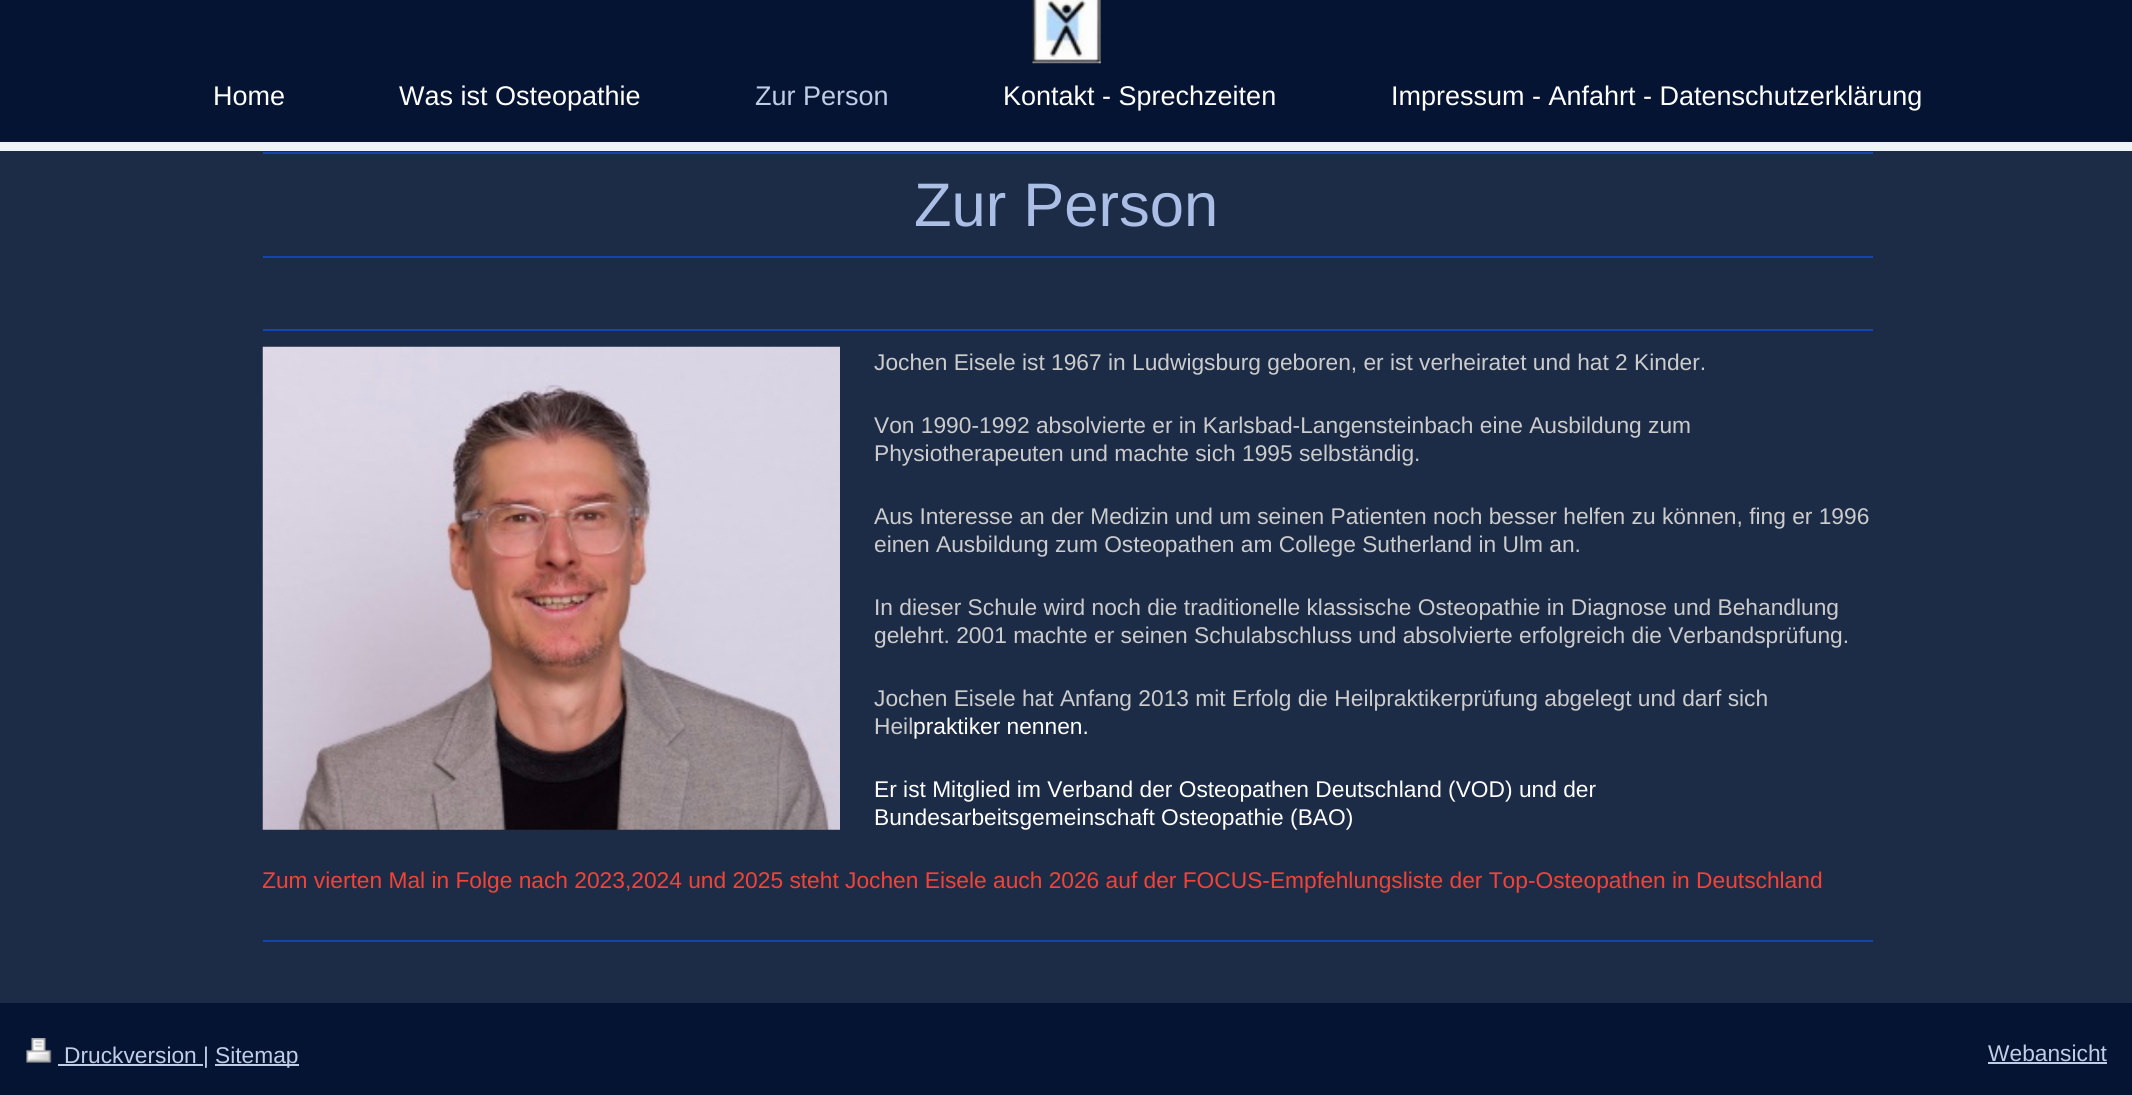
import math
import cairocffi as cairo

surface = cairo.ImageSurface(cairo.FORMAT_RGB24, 2132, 1095)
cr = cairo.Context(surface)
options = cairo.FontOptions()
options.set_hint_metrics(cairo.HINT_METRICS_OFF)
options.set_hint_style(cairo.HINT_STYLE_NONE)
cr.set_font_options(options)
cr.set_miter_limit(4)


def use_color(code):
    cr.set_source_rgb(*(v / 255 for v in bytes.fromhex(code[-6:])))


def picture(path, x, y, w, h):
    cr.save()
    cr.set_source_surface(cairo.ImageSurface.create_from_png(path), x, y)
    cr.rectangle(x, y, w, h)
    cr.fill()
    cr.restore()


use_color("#eef4f6")
cr.paint()
use_color("#051432")
cr.rectangle(0, 0, 2132, 142)
cr.fill()
picture("img1.png", 1032, 0, 69, 64)
cr.select_font_face("Liberation Sans")
cr.set_font_size(27)
use_color("#ffffff")
cr.move_to(213, 105)
cr.show_text("Home")
cr.move_to(399, 105)
cr.show_text("Was ist Osteopathie")
use_color("#c0cde7")
cr.move_to(755, 105)
cr.show_text("Zur Person")
use_color("#ffffff")
cr.move_to(1003, 105)
cr.show_text("Kontakt - Sprechzeiten")
cr.move_to(1391, 105)
cr.show_text("Impressum - Anfahrt - Datenschutzerklärung")
use_color("#1c2b46")
cr.rectangle(0, 151, 2132, 852)
cr.fill()
use_color("#1246af")
cr.rectangle(263, 152, 1610, 2)
cr.fill()
cr.set_font_size(61.5)
use_color("#abbee5")
cr.move_to(914, 226)
cr.show_text("Zur Person")
use_color("#1246af")
cr.rectangle(263, 256, 1610, 2)
cr.fill()
cr.rectangle(263, 329, 1610, 2)
cr.fill()
picture("img2.png", 262, 346, 578, 484)
cr.set_font_size(22.75)
use_color("#cccccc")
cr.move_to(874, 370)
cr.show_text("Jochen Eisele ist 1967 in Ludwigsburg geboren, er ist verheiratet und hat 2 Kinder.")
cr.move_to(874, 433)
cr.show_text("Von 1990-1992 absolvierte er in Karlsbad-Langensteinbach eine Ausbildung zum")
cr.move_to(874, 461)
cr.show_text("Physiotherapeuten und machte sich 1995 selbständig.")
cr.move_to(874, 524)
cr.show_text("Aus Interesse an der Medizin und um seinen Patienten noch besser helfen zu können, fing er 1996")
cr.move_to(874, 552)
cr.show_text("einen Ausbildung zum Osteopathen am College Sutherland in Ulm an.")
cr.move_to(874, 615)
cr.show_text("In dieser Schule wird noch die traditionelle klassische Osteopathie in Diagnose und Behandlung")
cr.move_to(874, 643)
cr.show_text("gelehrt. 2001 machte er seinen Schulabschluss und absolvierte erfolgreich die Verbandsprüfung.")
cr.move_to(874, 706)
cr.show_text("Jochen Eisele hat Anfang 2013 mit Erfolg die Heilpraktikerprüfung abgelegt und darf sich")
cr.move_to(874, 734)
cr.show_text("Heil")
use_color("#ffffff")
cr.move_to(913, 734)
cr.show_text("praktiker nennen.")
cr.move_to(874, 797)
cr.show_text("Er ist Mitglied im Verband der Osteopathen Deutschland (VOD) und der")
cr.move_to(874, 825)
cr.show_text("Bundesarbeitsgemeinschaft Osteopathie (BAO)")
cr.save()
cr.rectangle(263, 340, 1610, 589)
cr.clip()
use_color("#f44336")
cr.move_to(262, 888)
cr.show_text("Zum vierten Mal in Folge nach 2023,2024 und 2025 steht Jochen Eisele auch 2026 auf der FOCUS-Empfehlungsliste der Top-Osteopathen in Deutschland")
cr.restore()
use_color("#1246af")
cr.rectangle(263, 940, 1610, 2)
cr.fill()
use_color("#051432")
cr.rectangle(0, 1003, 2132, 92)
cr.fill()
picture("img3.png", 26, 1038, 26, 25)
use_color("#c0cde7")
cr.rectangle(58, 1064, 145, 2)
cr.fill()
cr.move_to(64, 1063)
cr.show_text("Druckversion |")
cr.rectangle(215, 1064, 84, 2)
cr.fill()
cr.move_to(215, 1063)
cr.show_text("Sitemap")
cr.move_to(1988, 1061)
cr.show_text("Webansicht")
cr.rectangle(1988, 1062, 119, 2)
cr.fill()
surface.write_to_png("result.png")
